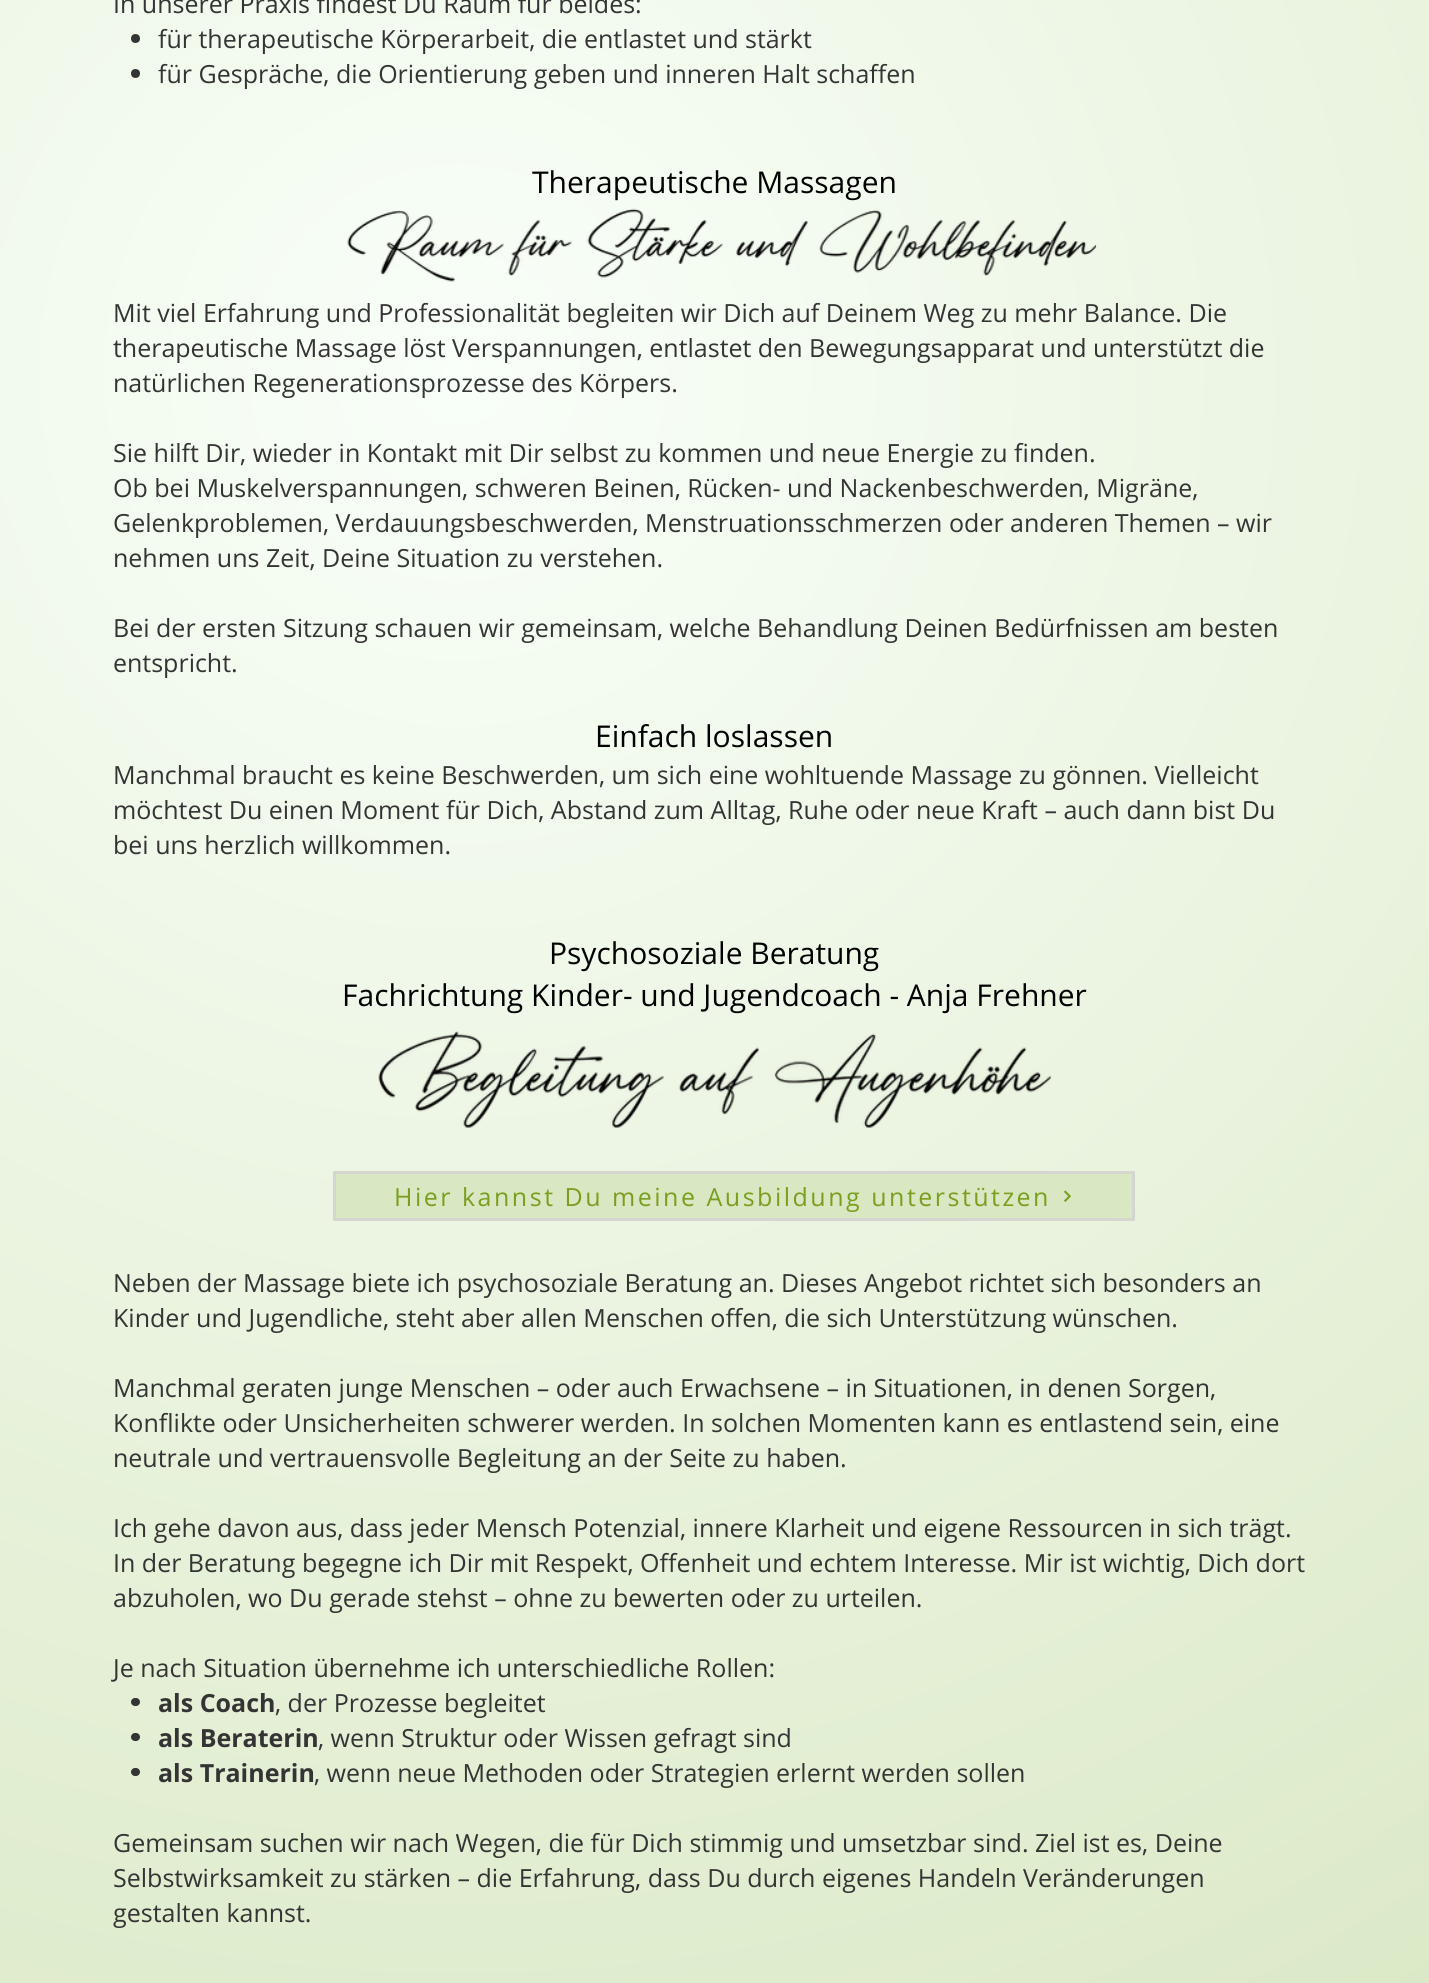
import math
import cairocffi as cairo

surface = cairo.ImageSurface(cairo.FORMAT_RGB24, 1429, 1983)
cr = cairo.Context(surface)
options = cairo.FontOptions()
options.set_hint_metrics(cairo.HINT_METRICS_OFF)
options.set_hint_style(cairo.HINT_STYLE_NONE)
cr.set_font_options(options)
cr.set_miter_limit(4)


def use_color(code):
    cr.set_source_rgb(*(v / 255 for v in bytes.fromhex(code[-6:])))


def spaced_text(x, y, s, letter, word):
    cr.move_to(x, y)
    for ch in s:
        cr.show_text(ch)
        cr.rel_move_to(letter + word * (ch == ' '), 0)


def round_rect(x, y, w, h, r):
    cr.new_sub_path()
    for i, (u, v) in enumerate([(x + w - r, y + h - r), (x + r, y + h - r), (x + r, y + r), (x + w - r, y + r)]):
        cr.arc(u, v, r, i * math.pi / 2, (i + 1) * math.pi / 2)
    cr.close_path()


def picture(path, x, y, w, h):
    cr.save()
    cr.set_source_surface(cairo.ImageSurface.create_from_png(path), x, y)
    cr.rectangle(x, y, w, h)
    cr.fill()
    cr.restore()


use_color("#f9fff9")
cr.paint()
use_color("#ffffff")
cr.rectangle(103, 0, 1225, 1983)
cr.fill()
gradient = cairo.RadialGradient(458, 373, 0, 458, 373, 2043)
gradient.add_color_stop_rgba(0, 0.976, 1, 0.976, 0.98)
gradient.add_color_stop_rgba(1, 0.851, 0.906, 0.761, 0.98)
cr.set_source(gradient)
cr.rectangle(0, 0, 1429, 1983)
cr.fill()
cr.select_font_face("Open Sans")
cr.set_font_size(25)
use_color("#343434")
cr.move_to(113, 13)
cr.show_text("In unserer Praxis findest Du Raum für beides:")
cr.new_path()
cr.arc(135.5, 38.5, 4.5, 0, 2 * math.pi)
cr.fill()
cr.move_to(158, 48)
cr.show_text("für therapeutische Körperarbeit, die entlastet und stärkt")
cr.new_path()
cr.arc(135.5, 73.5, 4.5, 0, 2 * math.pi)
cr.fill()
cr.move_to(158, 83)
cr.show_text("für Gespräche, die Orientierung geben und inneren Halt schaffen")
cr.set_font_size(30)
use_color("#000000")
cr.move_to(532, 193)
cr.show_text("Therapeutische Massagen")
cr.set_font_size(25)
use_color("#343434")
cr.move_to(113, 322)
cr.show_text("Mit viel Erfahrung und Professionalität begleiten wir Dich auf Deinem Weg zu mehr Balance. Die")
cr.move_to(113, 357)
cr.show_text("therapeutische Massage löst Verspannungen, entlastet den Bewegungsapparat und unterstützt die")
cr.move_to(113, 392)
cr.show_text("natürlichen Regenerationsprozesse des Körpers.")
cr.move_to(113, 462)
cr.show_text("Sie hilft Dir, wieder in Kontakt mit Dir selbst zu kommen und neue Energie zu finden.")
cr.move_to(113, 497)
cr.show_text("Ob bei Muskelverspannungen, schweren Beinen, Rücken- und Nackenbeschwerden, Migräne,")
cr.move_to(113, 532)
cr.show_text("Gelenkproblemen, Verdauungsbeschwerden, Menstruationsschmerzen oder anderen Themen – wir")
cr.move_to(113, 567)
cr.show_text("nehmen uns Zeit, Deine Situation zu verstehen.")
cr.move_to(113, 637)
cr.show_text("Bei der ersten Sitzung schauen wir gemeinsam, welche Behandlung Deinen Bedürfnissen am besten")
cr.move_to(113, 672)
cr.show_text("entspricht.")
cr.set_font_size(30)
use_color("#000000")
cr.move_to(595, 747)
cr.show_text("Einfach loslassen")
cr.set_font_size(25)
use_color("#343434")
cr.move_to(113, 784)
cr.show_text("Manchmal braucht es keine Beschwerden, um sich eine wohltuende Massage zu gönnen. Vielleicht")
cr.move_to(113, 819)
cr.show_text("möchtest Du einen Moment für Dich, Abstand zum Alltag, Ruhe oder neue Kraft – auch dann bist Du")
cr.move_to(113, 854)
cr.show_text("bei uns herzlich willkommen.")
cr.set_font_size(30)
use_color("#000000")
cr.move_to(549, 964)
cr.show_text("Psychosoziale Beratung")
cr.move_to(342, 1006)
cr.show_text("Fachrichtung Kinder- und Jugendcoach - Anja Frehner")
cr.set_font_size(25)
use_color("#343434")
cr.move_to(113, 1292)
cr.show_text("Neben der Massage biete ich psychosoziale Beratung an. Dieses Angebot richtet sich besonders an")
cr.move_to(113, 1327)
cr.show_text("Kinder und Jugendliche, steht aber allen Menschen offen, die sich Unterstützung wünschen.")
cr.move_to(113, 1397)
cr.show_text("Manchmal geraten junge Menschen – oder auch Erwachsene – in Situationen, in denen Sorgen,")
cr.move_to(113, 1432)
cr.show_text("Konflikte oder Unsicherheiten schwerer werden. In solchen Momenten kann es entlastend sein, eine")
cr.move_to(113, 1467)
cr.show_text("neutrale und vertrauensvolle Begleitung an der Seite zu haben.")
cr.move_to(113, 1537)
cr.show_text("Ich gehe davon aus, dass jeder Mensch Potenzial, innere Klarheit und eigene Ressourcen in sich trägt.")
cr.move_to(113, 1572)
cr.show_text("In der Beratung begegne ich Dir mit Respekt, Offenheit und echtem Interesse. Mir ist wichtig, Dich dort")
cr.move_to(113, 1607)
cr.show_text("abzuholen, wo Du gerade stehst – ohne zu bewerten oder zu urteilen.")
cr.move_to(113, 1677)
cr.show_text("Je nach Situation übernehme ich unterschiedliche Rollen:")
round_rect(131, 1698, 9, 8, 4)
cr.fill()
cr.select_font_face("Open Sans", cairo.FONT_SLANT_NORMAL, cairo.FONT_WEIGHT_BOLD)
cr.move_to(158, 1712)
cr.show_text("als Coach")
cr.select_font_face("Open Sans")
cr.move_to(275, 1712)
cr.show_text(", der Prozesse begleitet")
round_rect(131, 1733, 9, 8, 4)
cr.fill()
cr.select_font_face("Open Sans", cairo.FONT_SLANT_NORMAL, cairo.FONT_WEIGHT_BOLD)
cr.move_to(158, 1747)
cr.show_text("als Beraterin")
cr.select_font_face("Open Sans")
cr.move_to(318, 1747)
cr.show_text(", wenn Struktur oder Wissen gefragt sind")
round_rect(131, 1768, 9, 8, 4)
cr.fill()
cr.select_font_face("Open Sans", cairo.FONT_SLANT_NORMAL, cairo.FONT_WEIGHT_BOLD)
cr.move_to(158, 1782)
cr.show_text("als Trainerin")
cr.select_font_face("Open Sans")
cr.move_to(314, 1782)
cr.show_text(", wenn neue Methoden oder Strategien erlernt werden sollen")
cr.move_to(113, 1852)
cr.show_text("Gemeinsam suchen wir nach Wegen, die für Dich stimmig und umsetzbar sind. Ziel ist es, Deine")
cr.move_to(113, 1887)
cr.show_text("Selbstwirksamkeit zu stärken – die Erfahrung, dass Du durch eigenes Handeln Veränderungen")
cr.move_to(113, 1922)
cr.show_text("gestalten kannst.")
picture("img1.png", 347, 208, 750, 74)
picture("img2.png", 378, 1031, 674, 97)
use_color("#d9e7c2")
cr.rectangle(334.5, 1172.5, 799, 47)
cr.fill_preserve()
use_color("#d5d6d0")
cr.set_line_width(3)
cr.stroke()
use_color("#7a9e1e")
spaced_text(394, 1206, "Hier kannst Du meine Ausbildung unterstützen", 2.5, 0)
picture("img3.png", 1064, 1190, 7, 12)
surface.write_to_png("result.png")
